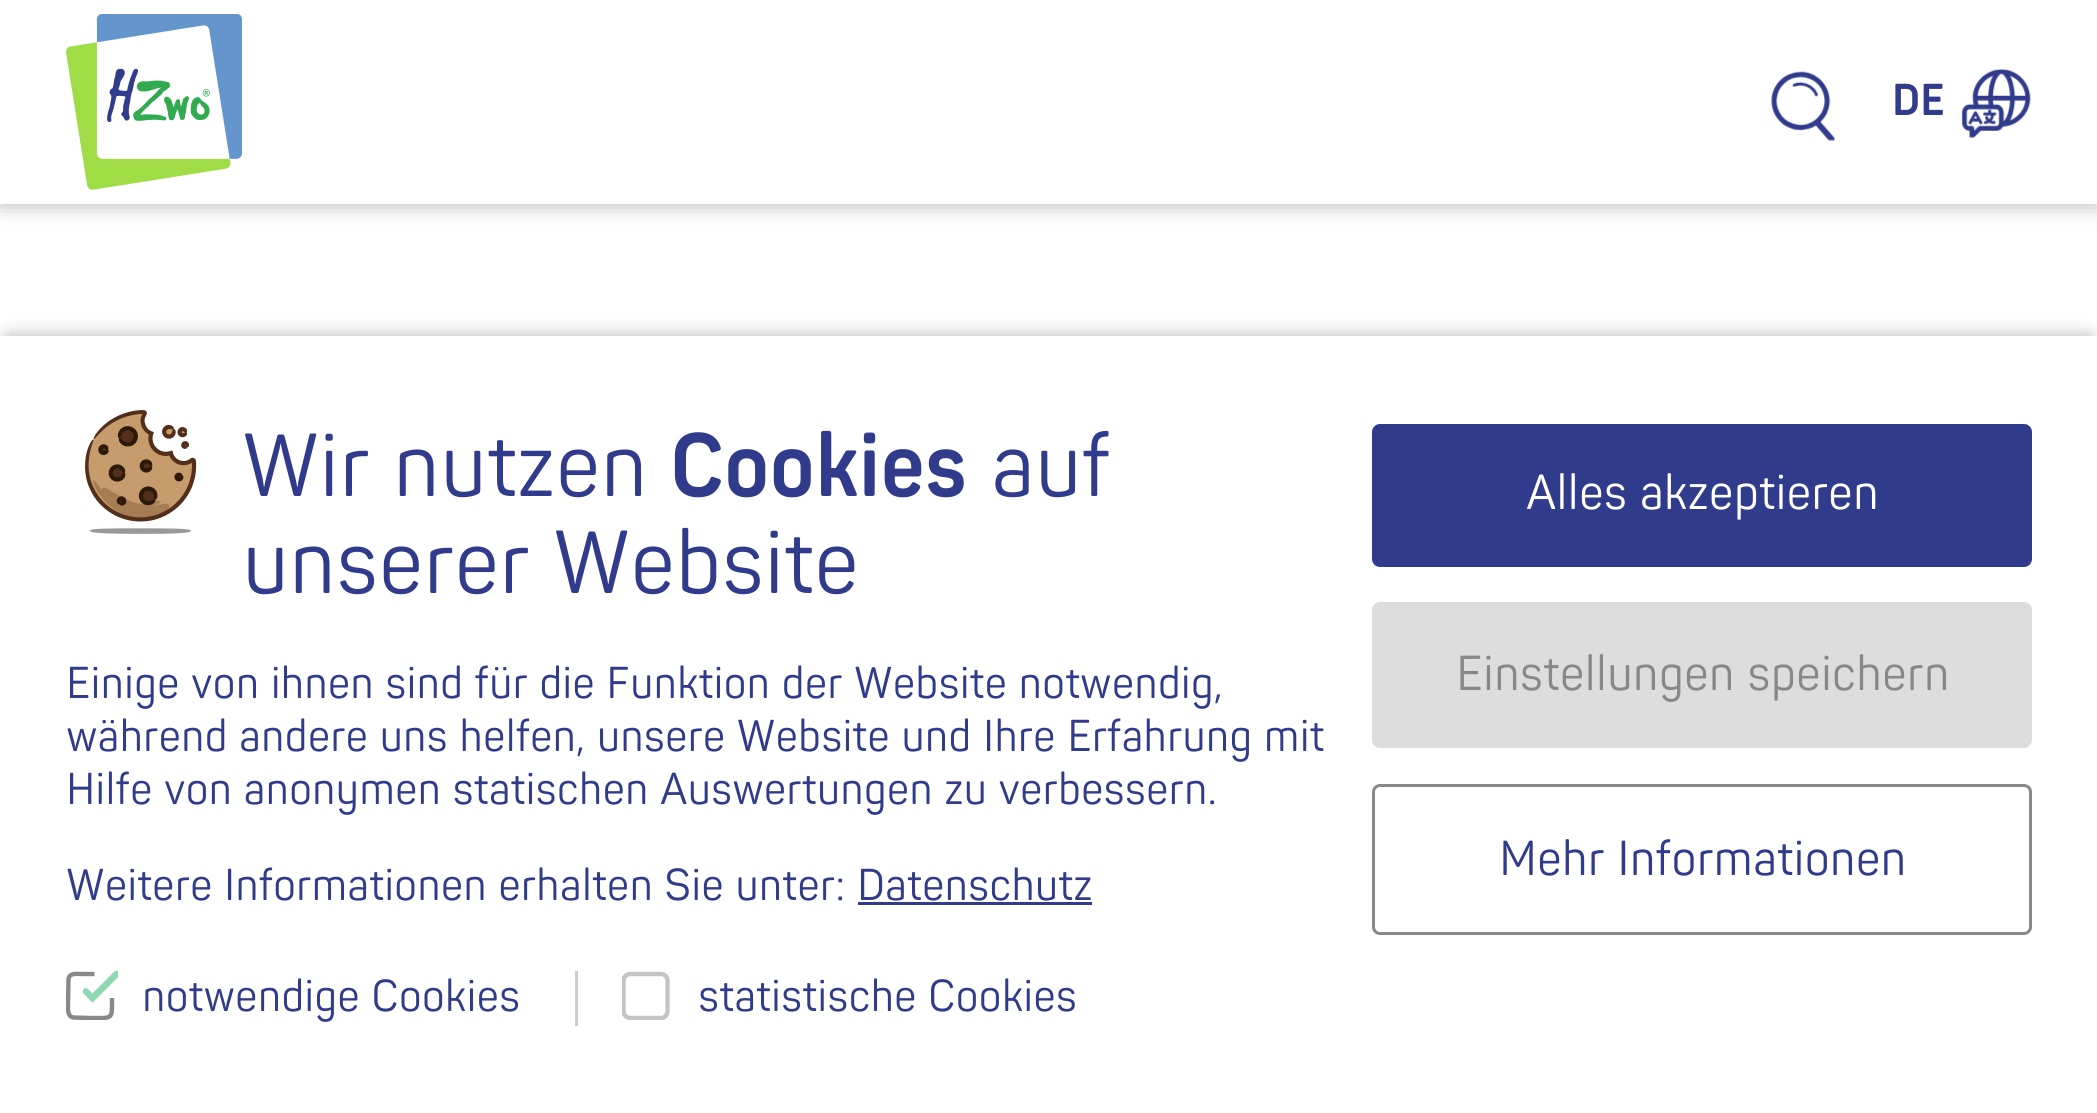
import math
import cairocffi as cairo

surface = cairo.ImageSurface(cairo.FORMAT_RGB24, 2097, 1113)
cr = cairo.Context(surface)
options = cairo.FontOptions()
options.set_hint_metrics(cairo.HINT_METRICS_OFF)
options.set_hint_style(cairo.HINT_STYLE_NONE)
cr.set_font_options(options)
cr.set_miter_limit(4)


def use_color(code):
    cr.set_source_rgb(*(v / 255 for v in bytes.fromhex(code[-6:])))


def round_rect(x, y, w, h, r):
    cr.new_sub_path()
    for i, (u, v) in enumerate([(x + w - r, y + h - r), (x + r, y + h - r), (x + r, y + r), (x + w - r, y + r)]):
        cr.arc(u, v, r, i * math.pi / 2, (i + 1) * math.pi / 2)
    cr.close_path()


def shadow(x, y, w, h, r, blur, alpha):
    cr.push_group_with_content(cairo.CONTENT_ALPHA)
    cr.set_operator(cairo.OPERATOR_SOURCE)
    for i in range(15, -16, -2):
        e = blur * i / 6
        if min(w, h) + 2 * e > 0:
            cr.set_source_rgba(0, 0, 0, alpha * math.erfc((i - 1) / 8.5) / 2)
            round_rect(x - e, y - e, w + 2 * e, h + 2 * e, max(0, min(r + e + blur * .6, min(w, h) / 2 + e)))
            cr.fill()
    cr.mask(cr.pop_group())


def picture(path, x, y, w, h):
    cr.save()
    cr.set_source_surface(cairo.ImageSurface.create_from_png(path), x, y)
    cr.rectangle(x, y, w, h)
    cr.fill()
    cr.restore()


use_color("#ffffff")
cr.paint()
use_color("#000000")
shadow(0, 0, 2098, 204, 0, 11, 0.3)
use_color("#ffffff")
cr.rectangle(0, 0, 2097, 204)
cr.fill()
picture("img1.png", 66, 14, 176, 176)
picture("img2.png", 1771, 71, 65, 70)
cr.select_font_face("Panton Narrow", cairo.FONT_SLANT_NORMAL, cairo.FONT_WEIGHT_BOLD)
cr.set_font_size(44)
use_color("#313b8b")
cr.move_to(1892, 115)
cr.show_text("DE")
picture("img3.png", 1961, 68, 70, 70)
use_color("#000000")
shadow(8, 336, 2082, 761, 0, 9, 0.3)
use_color("#ffffff")
cr.rectangle(0, 336, 2097, 777)
cr.fill()
picture("img4.png", 85, 410, 112, 124)
cr.select_font_face("Panton Narrow")
cr.set_font_size(88)
use_color("#313b8b")
cr.move_to(242, 496)
cr.show_text("Wir nutzen")
cr.select_font_face("Panton Narrow", cairo.FONT_SLANT_NORMAL, cairo.FONT_WEIGHT_BOLD)
cr.move_to(670, 496)
cr.show_text("Cookies")
cr.select_font_face("Panton Narrow")
cr.move_to(991, 496)
cr.show_text("auf")
cr.move_to(242, 593)
cr.show_text("unserer Website")
cr.set_font_size(44)
cr.move_to(66, 698)
cr.show_text("Einige von ihnen sind für die Funktion der Website notwendig,")
cr.move_to(66, 751)
cr.show_text("während andere uns helfen, unsere Website und Ihre Erfahrung mit")
cr.move_to(66, 804)
cr.show_text("Hilfe von anonymen statischen Auswertungen zu verbessern.")
cr.move_to(66, 900)
cr.show_text("Weitere Informationen erhalten Sie unter: Datenschutz")
cr.rectangle(858, 902, 234, 3)
cr.fill()
use_color("#cccccc")
cr.rectangle(575, 971, 3, 55)
cr.fill()
cr.save()
cr.rectangle(66, 968, 52, 52)
cr.clip()
cr.new_path()
cr.move_to(112, 998)
cr.curve_to(112, 1020, 113.5, 1018, 90, 1018)
cr.line_to(73.5, 1017.5)
cr.curve_to(67, 1016.5, 68, 1008.5, 68, 1003.5)
cr.line_to(68.5, 979)
cr.curve_to(69.5, 972.5, 77, 974, 82, 974)
cr.line_to(94.5, 974)
use_color("#888888")
cr.set_line_width(4.4)
cr.stroke()
cr.new_path()
cr.move_to(86, 991.5)
cr.line_to(92.5, 998)
cr.line_to(116.5, 974)
use_color("#8cd9b3")
cr.set_line_width(6.6)
cr.set_line_cap(cairo.LINE_CAP_ROUND)
cr.stroke()
cr.restore()
use_color("#313b8b")
cr.move_to(142, 1011)
cr.show_text("notwendige Cookies")
cr.save()
cr.rectangle(622, 968, 52, 52)
cr.clip()
cr.new_path()
cr.move_to(667.5, 980.5)
cr.line_to(667.5, 1011)
cr.curve_to(667.5, 1015, 664.5, 1018, 661, 1018)
cr.line_to(630.5, 1018)
cr.curve_to(626.5, 1018, 623.5, 1015, 623.5, 1011)
cr.line_to(623.5, 980.5)
cr.curve_to(623.5, 977, 626.5, 974, 630.5, 974)
cr.line_to(661, 974)
cr.curve_to(664.5, 974, 667.5, 977, 667.5, 980.5)
cr.close_path()
use_color("#c4c4c4")
cr.set_line_width(4.4)
cr.stroke()
cr.restore()
cr.move_to(698, 1011)
cr.show_text("statistische Cookies")
round_rect(1372, 424, 660, 143, 8)
cr.fill()
cr.set_font_size(48.4)
use_color("#ffffff")
cr.move_to(1526, 509)
cr.show_text("Alles akzeptieren")
use_color("#dddddd")
round_rect(1372, 602, 660, 146, 8)
cr.fill()
use_color("#888888")
cr.move_to(1456, 690)
cr.show_text("Einstellungen speichern")
round_rect(1373.5, 785.5, 657, 148, 6.5)
cr.set_line_width(3)
cr.stroke()
use_color("#313b8b")
cr.move_to(1499, 875)
cr.show_text("Mehr Informationen")
surface.write_to_png("result.png")
